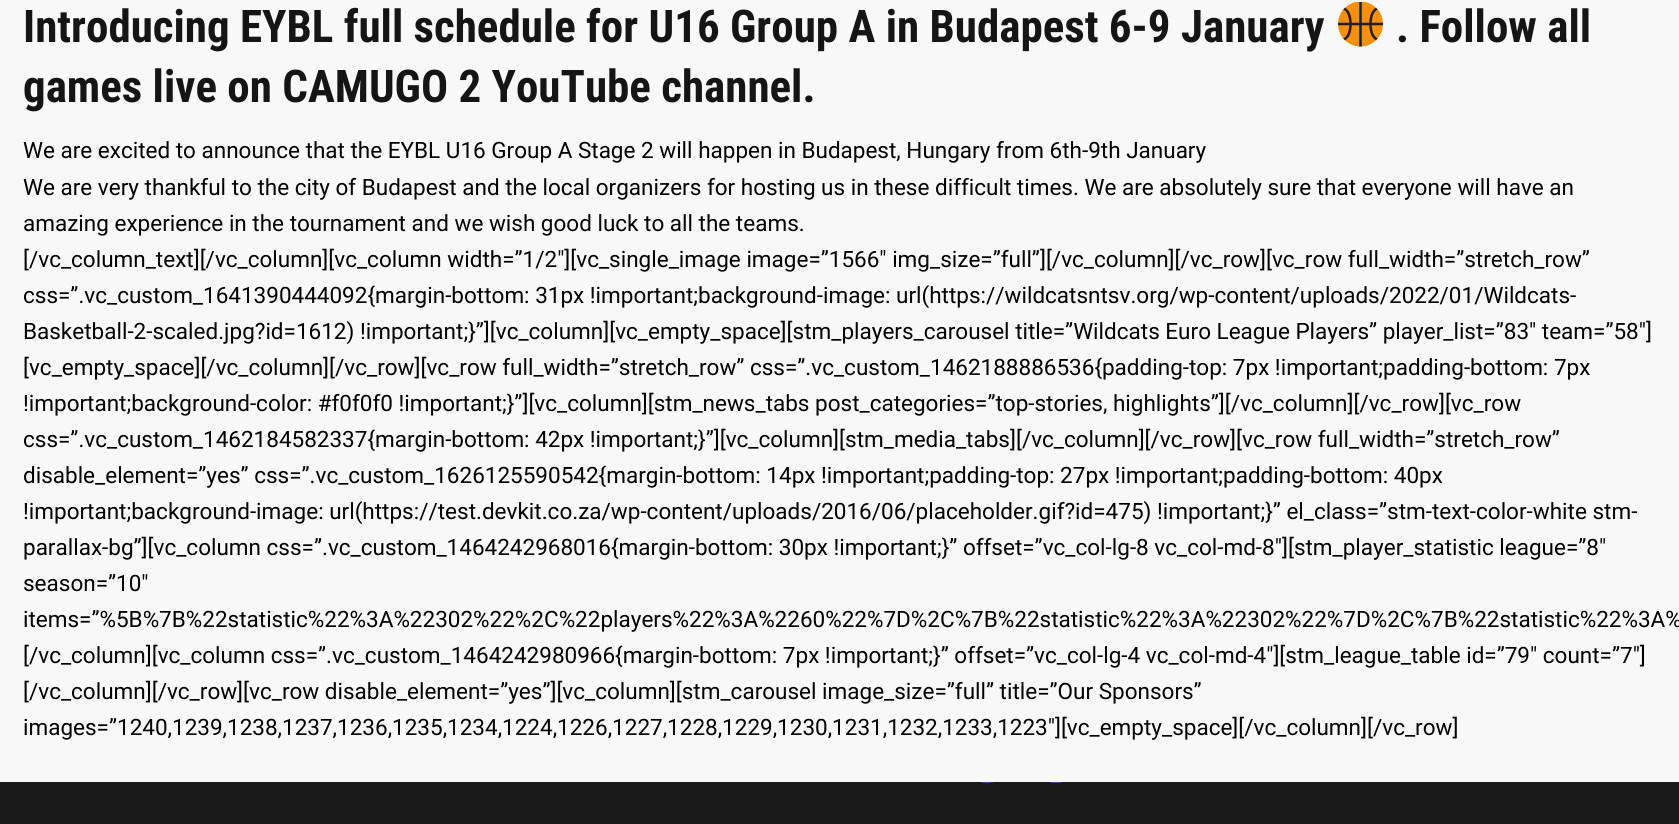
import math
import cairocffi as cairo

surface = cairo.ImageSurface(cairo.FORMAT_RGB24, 1679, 824)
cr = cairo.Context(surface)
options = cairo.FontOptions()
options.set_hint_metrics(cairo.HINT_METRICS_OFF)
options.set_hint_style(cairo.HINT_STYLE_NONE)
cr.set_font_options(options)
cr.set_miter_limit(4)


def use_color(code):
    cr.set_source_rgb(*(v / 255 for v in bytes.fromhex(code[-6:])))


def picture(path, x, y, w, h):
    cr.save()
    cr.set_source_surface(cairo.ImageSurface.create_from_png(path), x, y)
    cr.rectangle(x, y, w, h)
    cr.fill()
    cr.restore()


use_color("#1a1a1a")
cr.paint()
use_color("#354ab3")
cr.arc(987, 756, 27, 0, 2 * math.pi)
cr.fill()
cr.arc(1056, 756, 27, 0, 2 * math.pi)
cr.fill()
use_color("#f8f8f8")
cr.rectangle(0, 0, 1679, 782)
cr.fill()
cr.select_font_face("Roboto Condensed", cairo.FONT_SLANT_NORMAL, cairo.FONT_WEIGHT_BOLD)
cr.set_font_size(45)
use_color("#151515")
cr.move_to(23, 42)
cr.show_text("Introducing EYBL full schedule for U16 Group A in Budapest 6-9 January")
picture("img1.png", 1338, 2, 45, 45)
cr.move_to(1396, 42)
cr.show_text(". Follow all")
cr.move_to(23, 102)
cr.show_text("games live on CAMUGO 2 YouTube channel.")
cr.select_font_face("Roboto")
cr.set_font_size(22.5)
use_color("#000000")
cr.move_to(23, 158)
cr.show_text("We are excited to announce that the EYBL U16 Group A Stage 2 will happen in Budapest, Hungary from 6th-9th January")
cr.move_to(23, 195)
cr.show_text("We are very thankful to the city of Budapest and the local organizers for hosting us in these difficult times. We are absolutely sure that everyone will have an")
cr.move_to(23, 231)
cr.show_text("amazing experience in the tournament and we wish good luck to all the teams.")
cr.move_to(23, 267)
cr.show_text("[/vc_column_text][/vc_column][vc_column width=”1/2″][vc_single_image image=”1566″ img_size=”full”][/vc_column][/vc_row][vc_row full_width=”stretch_row”")
cr.move_to(23, 303)
cr.show_text("css=”.vc_custom_1641390444092{margin-bottom: 31px !important;background-image: url(https://wildcatsntsv.org/wp-content/uploads/2022/01/Wildcats-")
cr.move_to(23, 339)
cr.show_text("Basketball-2-scaled.jpg?id=1612) !important;}”][vc_column][vc_empty_space][stm_players_carousel title=”Wildcats Euro League Players” player_list=”83″ team=”58″]")
cr.move_to(23, 375)
cr.show_text("[vc_empty_space][/vc_column][/vc_row][vc_row full_width=”stretch_row” css=”.vc_custom_1462188886536{padding-top: 7px !important;padding-bottom: 7px")
cr.move_to(23, 411)
cr.show_text("!important;background-color: #f0f0f0 !important;}”][vc_column][stm_news_tabs post_categories=”top-stories, highlights”][/vc_column][/vc_row][vc_row")
cr.move_to(23, 447)
cr.show_text("css=”.vc_custom_1462184582337{margin-bottom: 42px !important;}”][vc_column][stm_media_tabs][/vc_column][/vc_row][vc_row full_width=”stretch_row”")
cr.move_to(23, 483)
cr.show_text("disable_element=”yes” css=”.vc_custom_1626125590542{margin-bottom: 14px !important;padding-top: 27px !important;padding-bottom: 40px")
cr.move_to(23, 519)
cr.show_text("!important;background-image: url(https://test.devkit.co.za/wp-content/uploads/2016/06/placeholder.gif?id=475) !important;}” el_class=”stm-text-color-white stm-")
cr.move_to(23, 555)
cr.show_text("parallax-bg”][vc_column css=”.vc_custom_1464242968016{margin-bottom: 30px !important;}” offset=”vc_col-lg-8 vc_col-md-8″][stm_player_statistic league=”8″")
cr.move_to(23, 591)
cr.show_text("season=”10″")
cr.move_to(23, 627)
cr.show_text("items=”%5B%7B%22statistic%22%3A%22302%22%2C%22players%22%3A%2260%22%7D%2C%7B%22statistic%22%3A%22302%22%7D%2C%7B%22statistic%22%3A%")
cr.move_to(23, 663)
cr.show_text("[/vc_column][vc_column css=”.vc_custom_1464242980966{margin-bottom: 7px !important;}” offset=”vc_col-lg-4 vc_col-md-4″][stm_league_table id=”79″ count=”7″]")
cr.move_to(23, 699)
cr.show_text("[/vc_column][/vc_row][vc_row disable_element=”yes”][vc_column][stm_carousel image_size=”full” title=”Our Sponsors”")
cr.move_to(23, 735)
cr.show_text("images=”1240,1239,1238,1237,1236,1235,1234,1224,1226,1227,1228,1229,1230,1231,1232,1233,1223″][vc_empty_space][/vc_column][/vc_row]")
surface.write_to_png("result.png")
